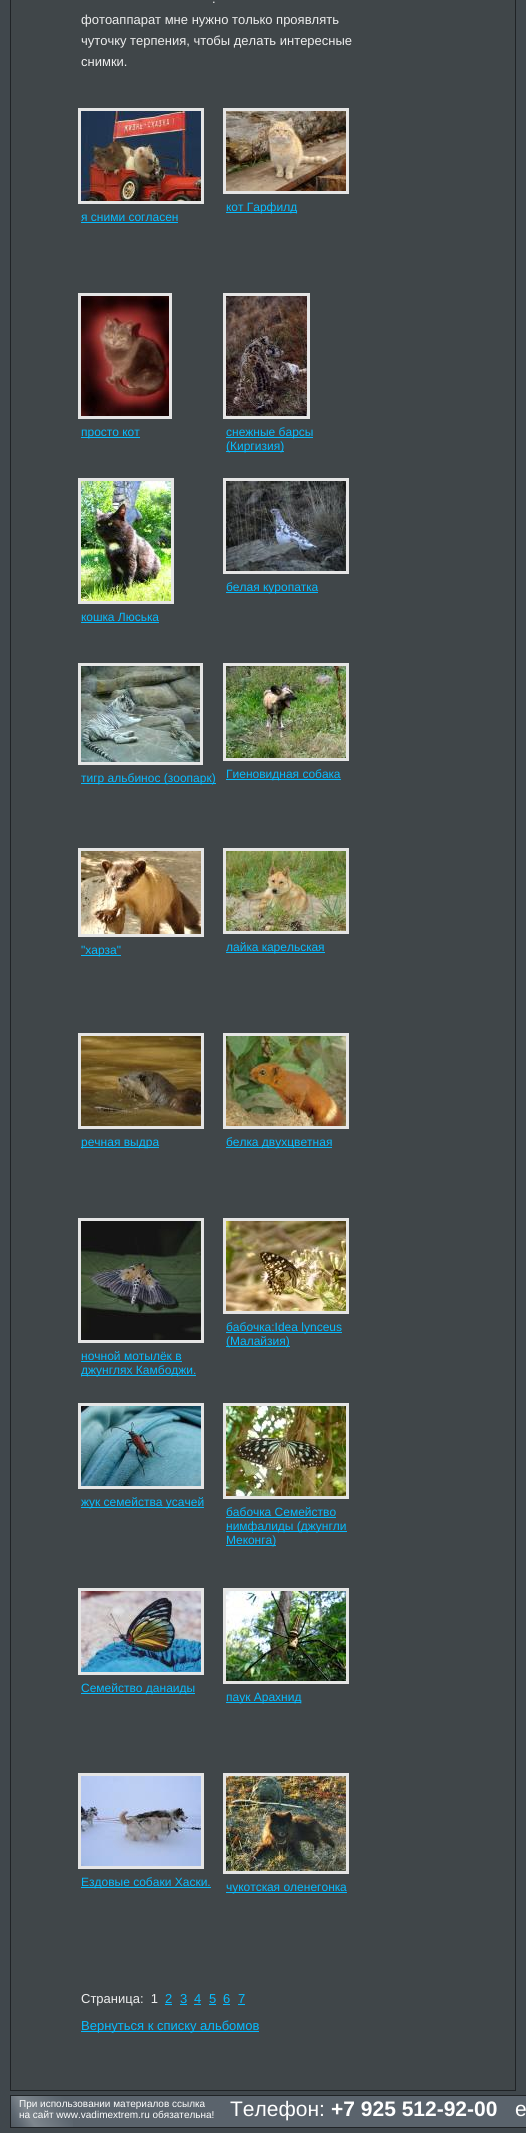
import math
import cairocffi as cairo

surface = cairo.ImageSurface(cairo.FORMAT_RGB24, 526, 2133)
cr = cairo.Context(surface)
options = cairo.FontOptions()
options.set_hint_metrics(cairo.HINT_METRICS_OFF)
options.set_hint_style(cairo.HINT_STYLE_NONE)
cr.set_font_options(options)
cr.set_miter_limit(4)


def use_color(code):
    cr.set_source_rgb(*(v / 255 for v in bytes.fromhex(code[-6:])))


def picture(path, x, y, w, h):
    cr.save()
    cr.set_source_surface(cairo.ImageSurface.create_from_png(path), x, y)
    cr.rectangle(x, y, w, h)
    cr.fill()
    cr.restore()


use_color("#40474c")
cr.paint()
cr.rectangle(10.5, -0.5, 505, 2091)
use_color("#202326")
cr.set_line_width(1)
cr.stroke()
use_color("#404649")
cr.rectangle(11, 0, 504, 2090)
cr.fill()
cr.select_font_face("Liberation Sans")
cr.set_font_size(13)
use_color("#eeeeee")
cr.move_to(212, 3)
cr.show_text(".")
cr.move_to(81, 24)
cr.show_text("фотоаппарат мне нужно только проявлять")
cr.move_to(81, 45)
cr.show_text("чуточку терпения, чтобы делать интересные")
cr.move_to(81, 66)
cr.show_text("снимки.")
cr.rectangle(224.5, 109.5, 123, 83)
use_color("#e5e5e5")
cr.set_line_width(3)
cr.stroke()
picture("img1.png", 226, 111, 120, 80)
use_color("#07bcff")
cr.rectangle(226, 212, 71, 1)
cr.fill()
cr.set_font_size(12)
cr.move_to(226, 211)
cr.show_text("кот Гарфилд")
cr.rectangle(79.5, 109.5, 123, 93)
use_color("#e5e5e5")
cr.stroke()
picture("img2.png", 81, 111, 120, 90)
use_color("#07bcff")
cr.move_to(81, 221)
cr.show_text("я сними согласен")
cr.rectangle(81, 222, 97, 1)
cr.fill()
cr.rectangle(79.5, 294.5, 91, 123)
use_color("#e5e5e5")
cr.stroke()
picture("img3.png", 81, 296, 88, 120)
use_color("#07bcff")
cr.rectangle(81, 437, 59, 1)
cr.fill()
cr.move_to(81, 436)
cr.show_text("просто кот")
cr.rectangle(224.5, 294.5, 84, 123)
use_color("#e5e5e5")
cr.stroke()
picture("img4.png", 226, 296, 81, 120)
use_color("#07bcff")
cr.rectangle(226, 437, 87, 1)
cr.fill()
cr.move_to(226, 436)
cr.show_text("снежные барсы")
cr.rectangle(226, 451, 58, 1)
cr.fill()
cr.move_to(226, 450)
cr.show_text("(Киргизия)")
cr.rectangle(224.5, 479.5, 123, 93)
use_color("#e5e5e5")
cr.stroke()
picture("img5.png", 226, 481, 120, 90)
use_color("#07bcff")
cr.rectangle(226, 592, 92, 1)
cr.fill()
cr.move_to(226, 591)
cr.show_text("белая куропатка")
cr.rectangle(79.5, 479.5, 93, 123)
use_color("#e5e5e5")
cr.stroke()
picture("img6.png", 81, 481, 90, 120)
use_color("#07bcff")
cr.move_to(81, 621)
cr.show_text("кошка Люська")
cr.rectangle(81, 622, 78, 1)
cr.fill()
cr.rectangle(79.5, 664.5, 122, 99)
use_color("#e5e5e5")
cr.stroke()
picture("img7.png", 81, 666, 119, 96)
use_color("#07bcff")
cr.rectangle(81, 783, 135, 1)
cr.fill()
cr.move_to(81, 782)
cr.show_text("тигр альбинос (зоопарк)")
cr.rectangle(224.5, 664.5, 123, 95)
use_color("#e5e5e5")
cr.stroke()
picture("img8.png", 226, 666, 120, 92)
use_color("#07bcff")
cr.rectangle(226, 779, 115, 1)
cr.fill()
cr.move_to(226, 778)
cr.show_text("Гиеновидная собака")
cr.rectangle(79.5, 849.5, 123, 86)
use_color("#e5e5e5")
cr.stroke()
picture("img9.png", 81, 851, 120, 83)
use_color("#07bcff")
cr.rectangle(81, 955, 40, 1)
cr.fill()
cr.move_to(81, 954)
cr.show_text("\"харза\"")
cr.rectangle(224.5, 849.5, 123, 83)
use_color("#e5e5e5")
cr.stroke()
picture("img10.png", 226, 851, 120, 80)
use_color("#07bcff")
cr.rectangle(226, 952, 99, 1)
cr.fill()
cr.move_to(226, 951)
cr.show_text("лайка карельская")
cr.rectangle(79.5, 1034.5, 123, 93)
use_color("#e5e5e5")
cr.stroke()
picture("img11.png", 81, 1036, 120, 90)
use_color("#07bcff")
cr.rectangle(81, 1147, 78, 1)
cr.fill()
cr.move_to(81, 1146)
cr.show_text("речная выдра")
cr.rectangle(224.5, 1034.5, 123, 93)
use_color("#e5e5e5")
cr.stroke()
picture("img12.png", 226, 1036, 120, 90)
use_color("#07bcff")
cr.rectangle(226, 1147, 106, 1)
cr.fill()
cr.move_to(226, 1146)
cr.show_text("белка двухцветная")
cr.rectangle(224.5, 1219.5, 123, 93)
use_color("#e5e5e5")
cr.stroke()
picture("img13.png", 226, 1221, 120, 90)
use_color("#07bcff")
cr.rectangle(226, 1332, 116, 1)
cr.fill()
cr.move_to(226, 1331)
cr.show_text("бабочка:Idea lynceus")
cr.rectangle(226, 1346, 64, 1)
cr.fill()
cr.move_to(226, 1345)
cr.show_text("(Малайзия)")
cr.rectangle(79.5, 1219.5, 123, 122)
use_color("#e5e5e5")
cr.stroke()
picture("img14.png", 81, 1221, 120, 119)
use_color("#07bcff")
cr.move_to(81, 1360)
cr.show_text("ночной мотылёк в")
cr.rectangle(81, 1361, 101, 1)
cr.fill()
cr.rectangle(81, 1375, 115, 1)
cr.fill()
cr.move_to(81, 1374)
cr.show_text("джунглях Камбоджи.")
cr.rectangle(79.5, 1404.5, 123, 83)
use_color("#e5e5e5")
cr.stroke()
picture("img15.png", 81, 1406, 120, 80)
use_color("#07bcff")
cr.rectangle(81, 1507, 123, 1)
cr.fill()
cr.move_to(81, 1506)
cr.show_text("жук семейства усачей")
cr.rectangle(224.5, 1404.5, 123, 93)
use_color("#e5e5e5")
cr.stroke()
picture("img16.png", 226, 1406, 120, 90)
use_color("#07bcff")
cr.move_to(226, 1516)
cr.show_text("бабочка Семейство")
cr.rectangle(226, 1517, 110, 1)
cr.fill()
cr.rectangle(226, 1531, 121, 1)
cr.fill()
cr.move_to(226, 1530)
cr.show_text("нимфалиды (джунгли")
cr.rectangle(226, 1545, 50, 1)
cr.fill()
cr.move_to(226, 1544)
cr.show_text("Меконга)")
cr.rectangle(79.5, 1589.5, 123, 84)
use_color("#e5e5e5")
cr.stroke()
picture("img17.png", 81, 1591, 120, 81)
use_color("#07bcff")
cr.rectangle(81, 1693, 114, 1)
cr.fill()
cr.move_to(81, 1692)
cr.show_text("Семейство данаиды")
cr.rectangle(224.5, 1589.5, 123, 93)
use_color("#e5e5e5")
cr.stroke()
picture("img18.png", 226, 1591, 120, 90)
use_color("#07bcff")
cr.rectangle(226, 1702, 75, 1)
cr.fill()
cr.move_to(226, 1701)
cr.show_text("паук Арахнид")
cr.rectangle(79.5, 1774.5, 123, 93)
use_color("#e5e5e5")
cr.stroke()
picture("img19.png", 81, 1776, 120, 90)
use_color("#07bcff")
cr.rectangle(81, 1887, 130, 1)
cr.fill()
cr.move_to(81, 1886)
cr.show_text("Ездовые собаки Хаски.")
cr.rectangle(224.5, 1774.5, 123, 98)
use_color("#e5e5e5")
cr.stroke()
picture("img20.png", 226, 1776, 120, 95)
use_color("#07bcff")
cr.rectangle(226, 1892, 121, 1)
cr.fill()
cr.move_to(226, 1891)
cr.show_text("чукотская оленегонка")
cr.set_font_size(13)
use_color("#eeeeee")
cr.move_to(81, 2003)
cr.show_text("Страница:  1")
use_color("#07bcff")
cr.move_to(165, 2003)
cr.show_text("2")
cr.rectangle(165, 2004, 7, 1)
cr.fill()
cr.move_to(180, 2003)
cr.show_text("3")
cr.rectangle(180, 2004, 7, 1)
cr.fill()
cr.move_to(194, 2003)
cr.show_text("4")
cr.rectangle(194, 2004, 7, 1)
cr.fill()
cr.move_to(209, 2003)
cr.show_text("5")
cr.rectangle(209, 2004, 7, 1)
cr.fill()
cr.move_to(223, 2003)
cr.show_text("6")
cr.rectangle(223, 2004, 7, 1)
cr.fill()
cr.move_to(238, 2003)
cr.show_text("7")
cr.rectangle(238, 2004, 7, 1)
cr.fill()
cr.rectangle(81, 2031, 178, 1)
cr.fill()
cr.move_to(81, 2030)
cr.show_text("Вернуться к списку альбомов")
use_color("#5a636c")
cr.rectangle(73, 2096, 453, 31)
cr.fill()
picture("img21.png", 11, 2096, 62, 31)
cr.rectangle(10.5, 2095.5, 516, 32)
use_color("#202326")
cr.set_line_width(1)
cr.stroke()
cr.set_font_size(10)
use_color("#ffffff")
cr.move_to(19, 2107)
cr.show_text("При использовании материалов ссылка")
cr.move_to(19, 2118)
cr.show_text("на сайт www.vadimextrem.ru обязательна!")
cr.set_font_size(21)
cr.move_to(230, 2116)
cr.show_text("Телефон:")
cr.select_font_face("Liberation Sans", cairo.FONT_SLANT_NORMAL, cairo.FONT_WEIGHT_BOLD)
cr.move_to(331, 2116)
cr.show_text("+7 925 512-92-00")
cr.select_font_face("Liberation Sans")
cr.move_to(515, 2116)
cr.show_text("e")
surface.write_to_png("result.png")
